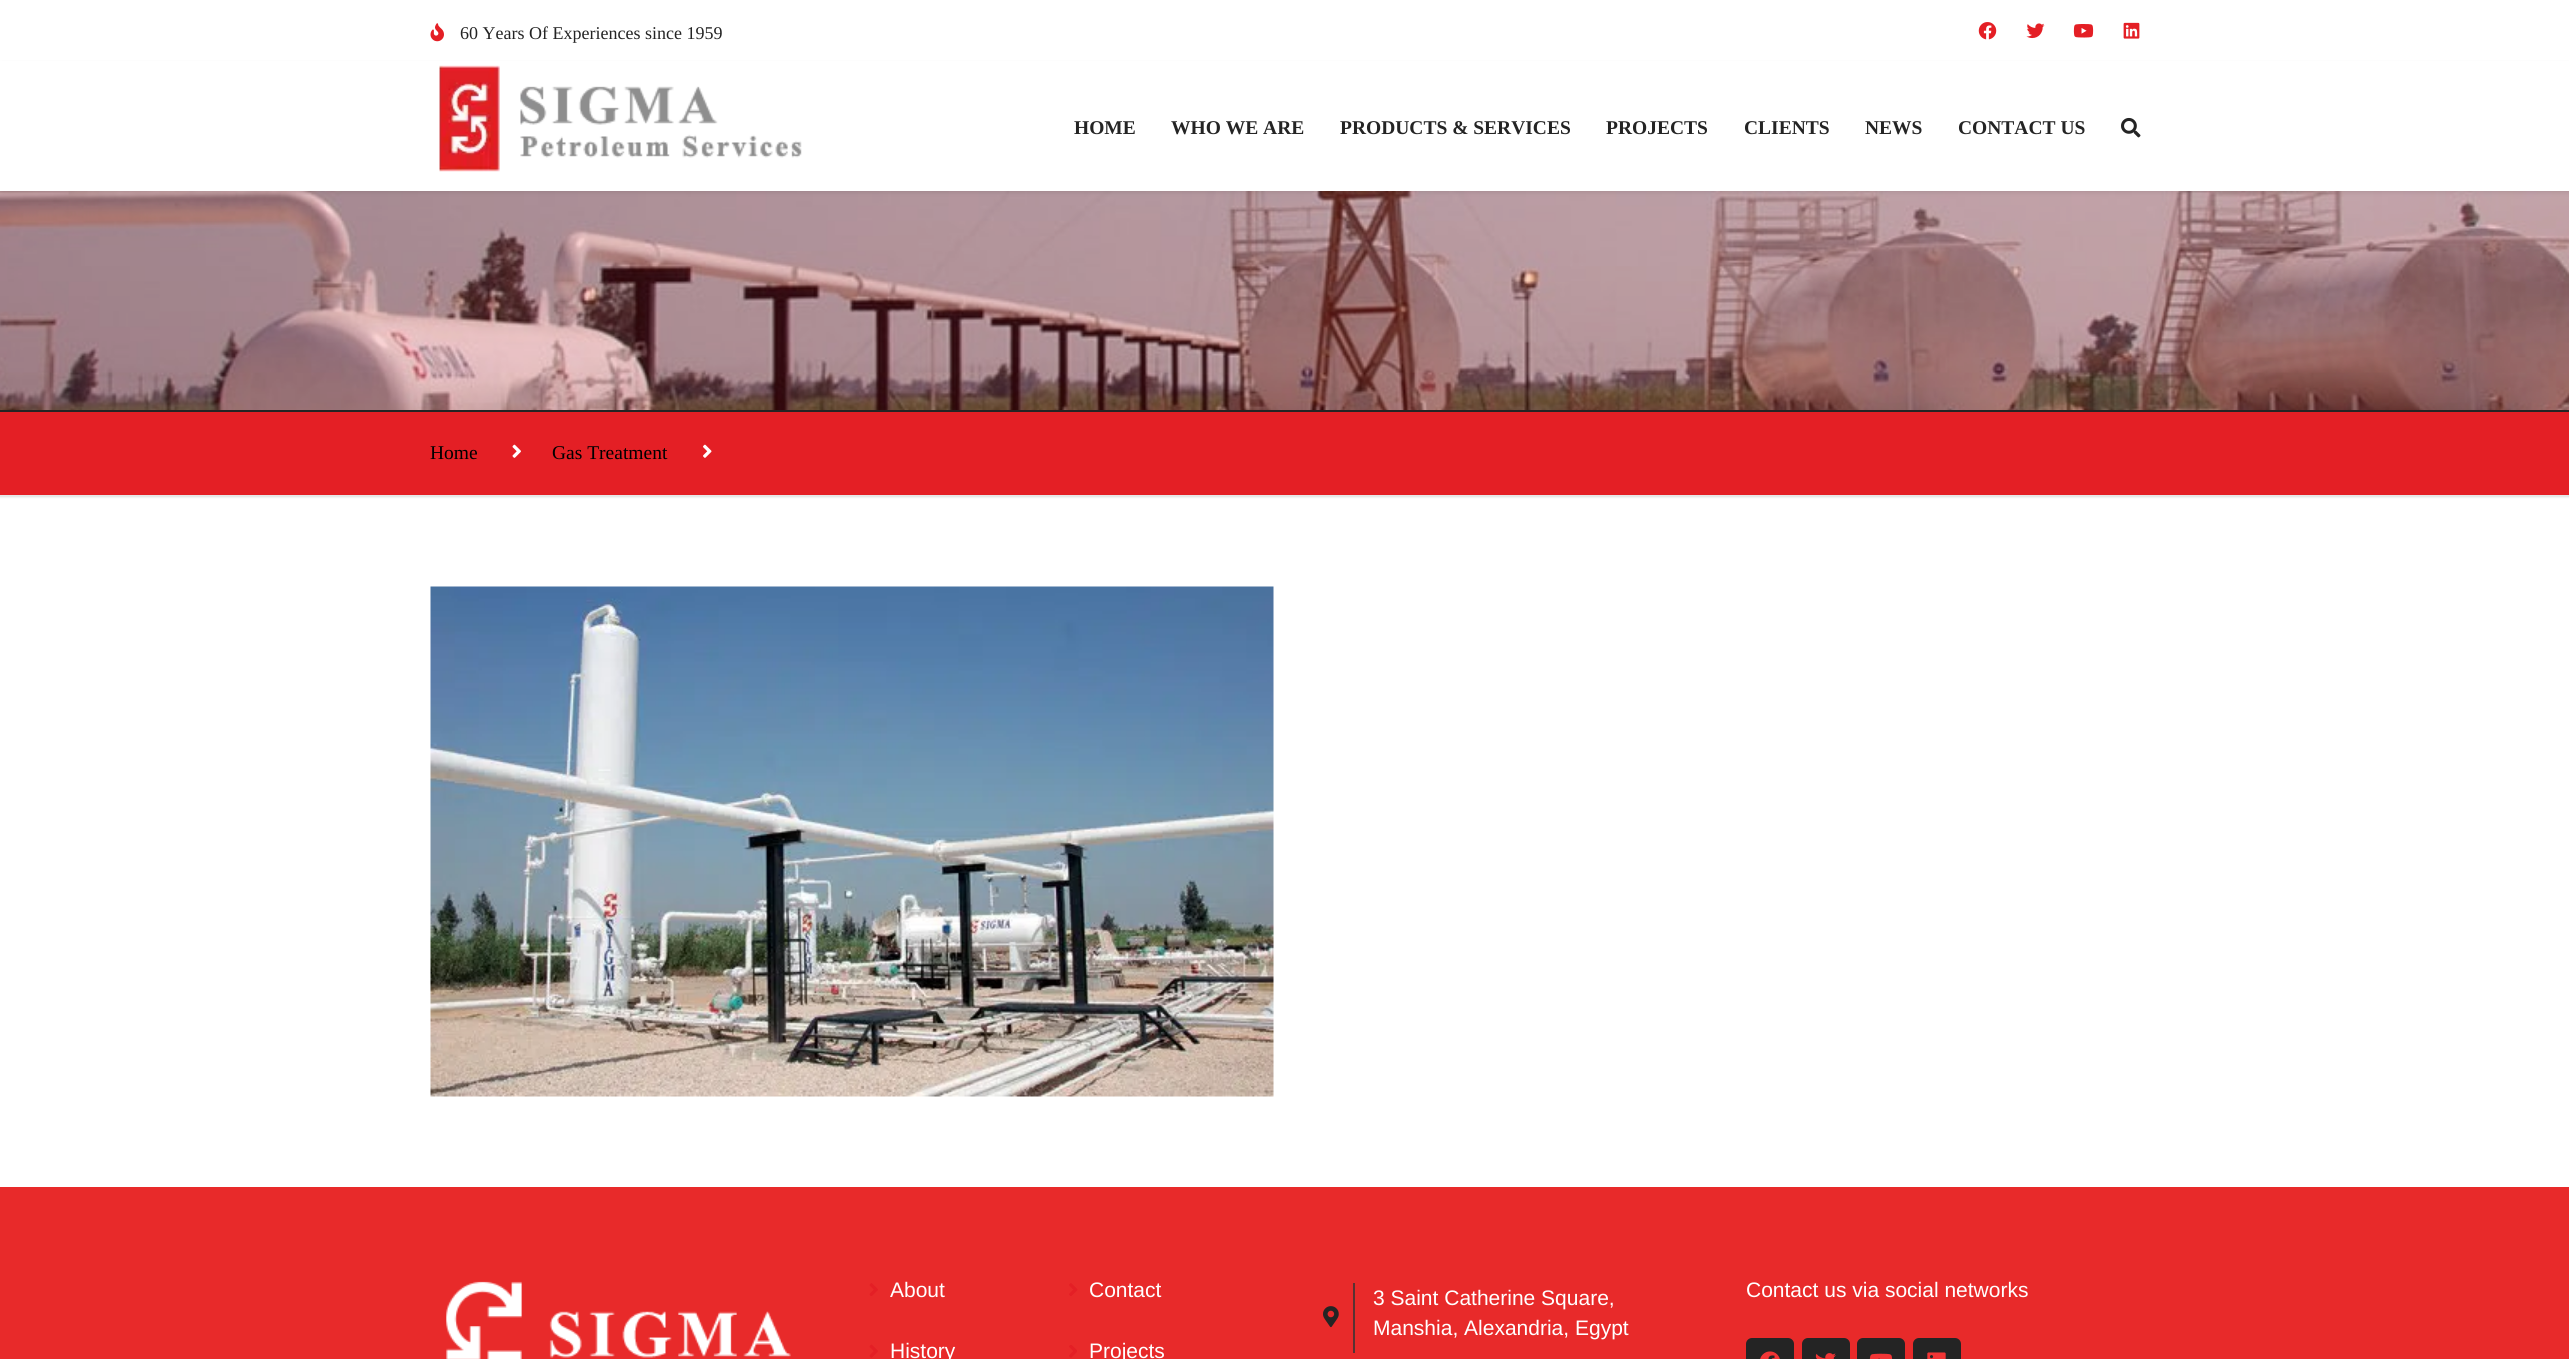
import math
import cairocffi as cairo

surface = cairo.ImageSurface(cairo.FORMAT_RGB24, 2569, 1359)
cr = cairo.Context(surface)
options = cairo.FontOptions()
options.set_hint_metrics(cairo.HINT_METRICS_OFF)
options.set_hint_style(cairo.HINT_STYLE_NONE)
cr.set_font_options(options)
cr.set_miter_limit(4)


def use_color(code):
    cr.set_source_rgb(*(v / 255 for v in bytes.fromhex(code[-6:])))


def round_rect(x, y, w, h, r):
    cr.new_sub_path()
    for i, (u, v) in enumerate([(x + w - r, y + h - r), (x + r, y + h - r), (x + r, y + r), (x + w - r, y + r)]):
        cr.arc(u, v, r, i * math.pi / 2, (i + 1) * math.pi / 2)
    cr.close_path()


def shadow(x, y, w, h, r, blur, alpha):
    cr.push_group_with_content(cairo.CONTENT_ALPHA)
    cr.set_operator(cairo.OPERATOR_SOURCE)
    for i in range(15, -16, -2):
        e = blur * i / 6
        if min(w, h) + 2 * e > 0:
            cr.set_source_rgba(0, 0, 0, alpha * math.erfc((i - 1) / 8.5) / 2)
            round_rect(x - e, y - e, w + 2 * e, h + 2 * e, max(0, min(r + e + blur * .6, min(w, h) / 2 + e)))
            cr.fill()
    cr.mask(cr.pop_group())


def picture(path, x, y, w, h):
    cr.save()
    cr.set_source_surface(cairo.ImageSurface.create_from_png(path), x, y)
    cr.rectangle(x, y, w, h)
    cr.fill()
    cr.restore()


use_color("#ffffff")
cr.paint()
picture("img1.png", 430, 23, 14, 19)
cr.select_font_face("Liberation Serif")
cr.set_font_size(18)
use_color("#242424")
cr.move_to(460, 39)
cr.show_text("60 Years Of Experiences since 1959")
picture("img2.png", 1978, 22, 19, 18)
picture("img3.png", 2026, 23, 19, 16)
picture("img4.png", 2073, 24, 21, 14)
picture("img5.png", 2123, 22, 17, 17)
use_color("#000000")
shadow(0, 411, 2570, 86, 0, 1, 0.14)
picture("img8.png", 0, 191, 2569, 219)
shadow(2, 65, 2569, 126, 0, 3, 0.15)
use_color("#ffffff")
cr.rectangle(0, 61, 2569, 130)
cr.fill()
picture("img6.png", 439, 65, 363, 107)
cr.select_font_face("Liberation Serif", cairo.FONT_SLANT_NORMAL, cairo.FONT_WEIGHT_BOLD)
cr.set_font_size(19.5)
use_color("#242424")
cr.move_to(1074, 134)
cr.show_text("HOME")
cr.move_to(1171, 134)
cr.show_text("WHO WE ARE")
cr.move_to(1340, 134)
cr.show_text("PRODUCTS & SERVICES")
cr.move_to(1606, 134)
cr.show_text("PROJECTS")
cr.move_to(1744, 134)
cr.show_text("CLIENTS")
cr.move_to(1865, 134)
cr.show_text("NEWS")
cr.move_to(1958, 134)
cr.show_text("CONTACT US")
picture("img7.png", 2121, 117, 20, 21)
cr.rectangle(0, 410, 2569, 2)
cr.fill()
use_color("#e41f25")
cr.rectangle(0, 412, 2569, 83)
cr.fill()
use_color("#e7e7e7")
cr.rectangle(0, 495, 2569, 2)
cr.fill()
cr.select_font_face("Liberation Serif")
use_color("#000000")
cr.move_to(430, 459)
cr.show_text("Home")
picture("img9.png", 512, 444, 9, 14)
cr.move_to(552, 459)
cr.show_text("Gas Treatment")
picture("img10.png", 703, 444, 9, 14)
picture("img11.png", 430, 586, 844, 511)
use_color("#e82a2a")
cr.rectangle(0, 1187, 2569, 172)
cr.fill()
picture("img12.png", 446, 1281, 345, 78)
picture("img13.png", 869, 1283, 9, 13)
cr.select_font_face("Liberation Sans")
cr.set_font_size(21)
use_color("#ffffff")
cr.move_to(890, 1297)
cr.show_text("About")
picture("img14.png", 1069, 1283, 9, 13)
cr.move_to(1089, 1297)
cr.show_text("Contact")
picture("img15.png", 869, 1344, 9, 14)
cr.move_to(890, 1358)
cr.show_text("History")
picture("img16.png", 1069, 1345, 8, 13)
cr.move_to(1089, 1358)
cr.show_text("Projects")
use_color("#583232")
cr.rectangle(1353, 1283, 2, 70)
cr.fill()
use_color("#ffffff")
cr.move_to(1373, 1305)
cr.show_text("3 Saint Catherine Square,")
picture("img17.png", 1323, 1306, 16, 22)
cr.move_to(1373, 1335)
cr.show_text("Manshia, Alexandria, Egypt")
cr.move_to(1746, 1297)
cr.show_text("Contact us via social networks")
use_color("#242424")
round_rect(1746, 1338, 48, 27, 6)
cr.fill()
picture("img18.png", 1760, 1351, 20, 8)
round_rect(1802, 1338, 48, 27, 6)
cr.fill()
picture("img19.png", 1815, 1353, 21, 6)
round_rect(1857, 1338, 48, 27, 6)
cr.fill()
picture("img20.png", 1869, 1353, 24, 6)
round_rect(1913, 1338, 48, 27, 6)
cr.fill()
picture("img21.png", 1927, 1352, 19, 7)
surface.write_to_png("result.png")
